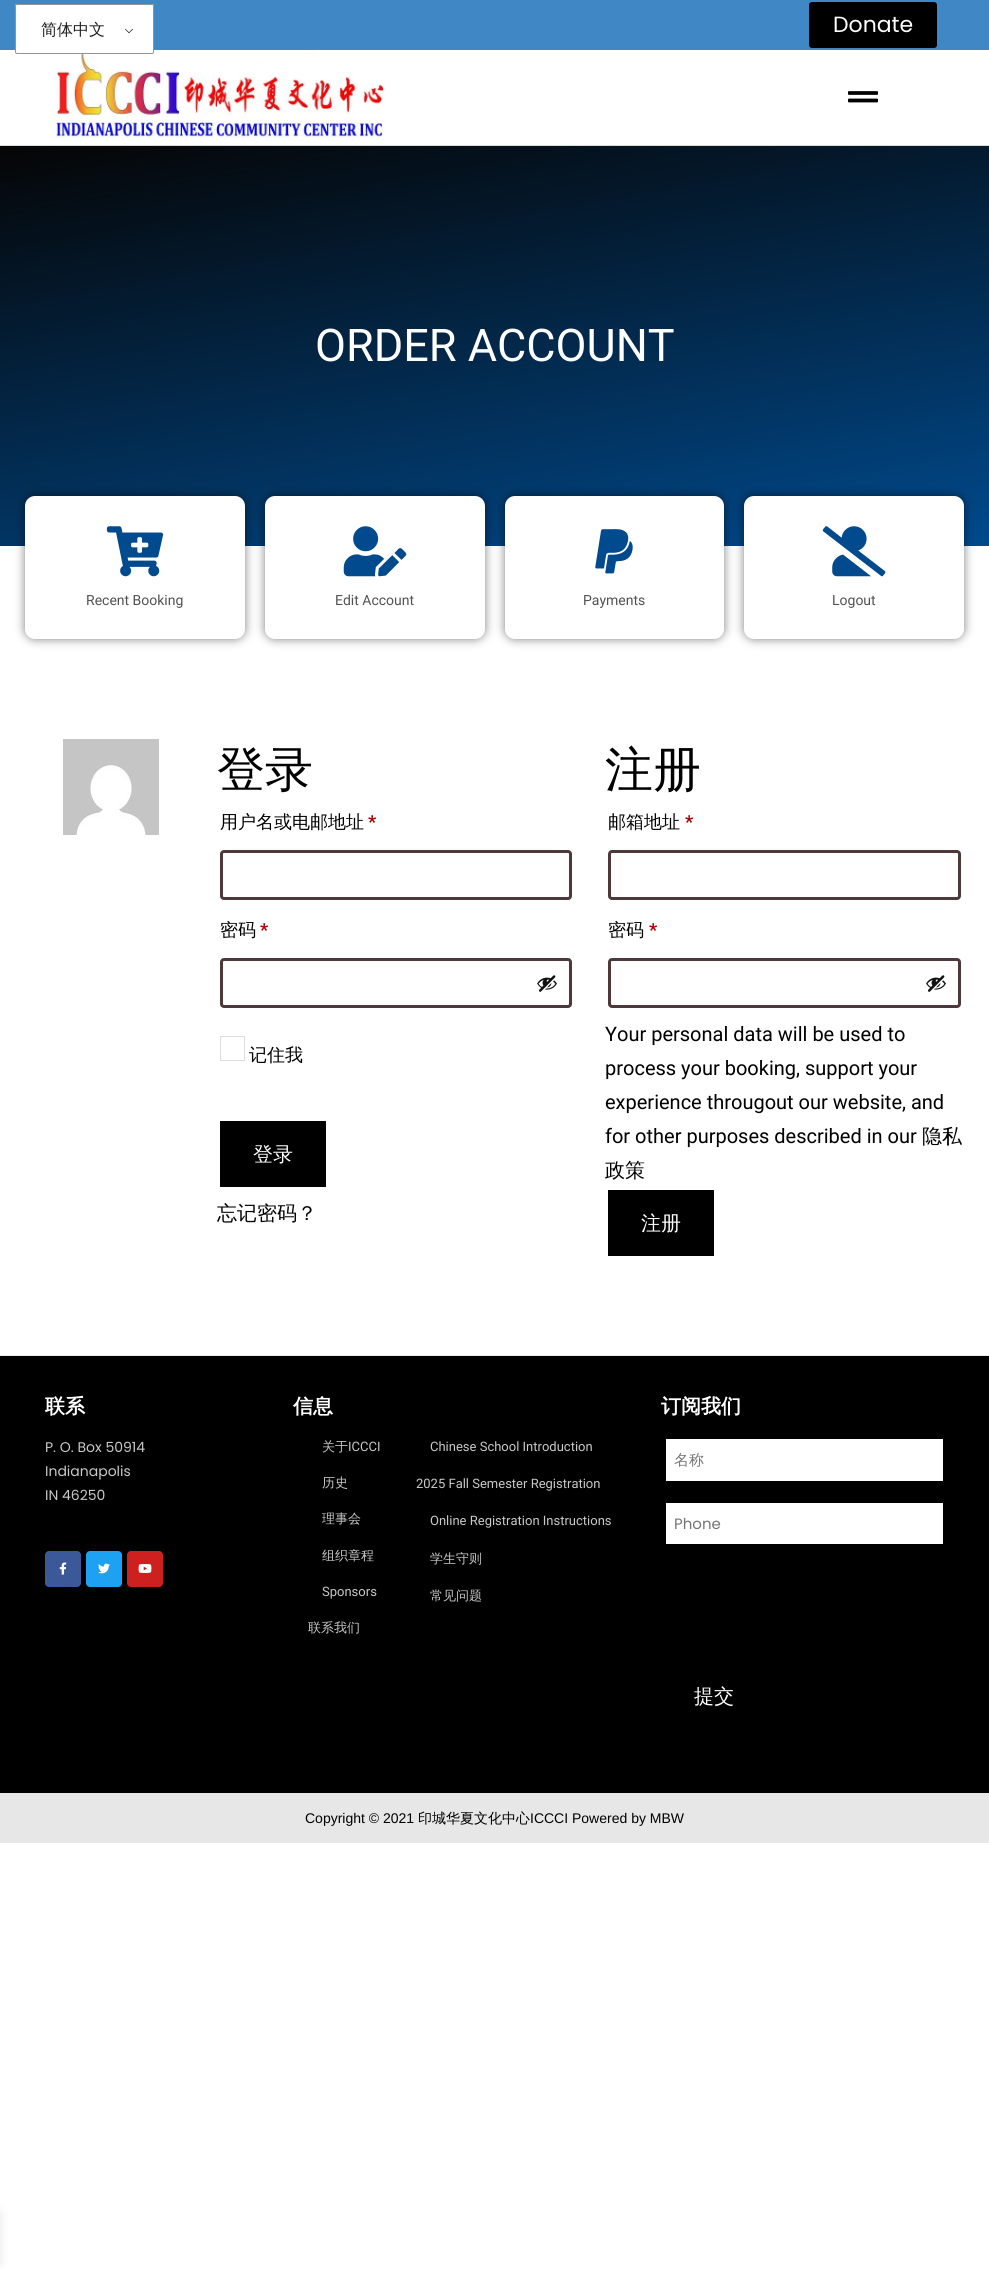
import math
import cairocffi as cairo

surface = cairo.ImageSurface(cairo.FORMAT_RGB24, 989, 2269)
cr = cairo.Context(surface)
options = cairo.FontOptions()
options.set_hint_metrics(cairo.HINT_METRICS_OFF)
options.set_hint_style(cairo.HINT_STYLE_NONE)
cr.set_font_options(options)
cr.set_miter_limit(4)


def use_color(code):
    cr.set_source_rgb(*(v / 255 for v in bytes.fromhex(code[-6:])))


def round_rect(x, y, w, h, r):
    cr.new_sub_path()
    for i, (u, v) in enumerate([(x + w - r, y + h - r), (x + r, y + h - r), (x + r, y + r), (x + w - r, y + r)]):
        cr.arc(u, v, r, i * math.pi / 2, (i + 1) * math.pi / 2)
    cr.close_path()


def shadow(x, y, w, h, r, blur, alpha):
    cr.push_group_with_content(cairo.CONTENT_ALPHA)
    cr.set_operator(cairo.OPERATOR_SOURCE)
    for i in range(15, -16, -2):
        e = blur * i / 6
        if min(w, h) + 2 * e > 0:
            cr.set_source_rgba(0, 0, 0, alpha * math.erfc((i - 1) / 8.5) / 2)
            round_rect(x - e, y - e, w + 2 * e, h + 2 * e, max(0, min(r + e + blur * .6, min(w, h) / 2 + e)))
            cr.fill()
    cr.mask(cr.pop_group())


def picture(path, x, y, w, h):
    cr.save()
    cr.set_source_surface(cairo.ImageSurface.create_from_png(path), x, y)
    cr.rectangle(x, y, w, h)
    cr.fill()
    cr.restore()


use_color("#ffffff")
cr.paint()
use_color("#3f88c5")
cr.rectangle(0, 0, 989, 50)
cr.fill()
picture("img2.png", 51, 50, 335, 92)
use_color("#ffffff")
round_rect(15, 4, 139, 50, 2)
cr.fill()
picture("img1.png", 125, 28, 8, 5)
round_rect(15.5, 4.5, 138, 49, 1.5)
use_color("#949494")
cr.set_line_width(1)
cr.stroke()
cr.select_font_face("WenQuanYi Zen Hei Medium")
cr.set_font_size(16)
use_color("#1e1e1e")
cr.move_to(41, 35)
cr.show_text("简体中文")
use_color("#000000")
round_rect(809, 2, 128, 46, 3)
cr.fill()
cr.select_font_face("Poppins")
cr.set_font_size(22)
use_color("#ffffff")
cr.move_to(833, 32)
cr.show_text("Donate")
use_color("#dbdbdb")
cr.rectangle(0, 145, 989, 1)
cr.fill()
picture("img3.png", 848, 91, 30, 12)
gradient = cairo.LinearGradient(445, 67, 544, 625)
gradient.add_color_stop_rgba(0, 0.02, 0.02, 0.02, 1)
gradient.add_color_stop_rgba(1, 0, 0.29, 0.553, 1)
cr.set_source(gradient)
cr.rectangle(0, 146, 989, 400)
cr.fill()
cr.select_font_face("Roboto")
cr.set_font_size(45)
use_color("#ffffff")
cr.move_to(315, 361)
cr.show_text("ORDER ACCOUNT")
use_color("#000000")
shadow(25, 496, 220, 143, 10, 5, 0.5)
use_color("#ffffff")
round_rect(25, 496, 220, 143, 10)
cr.fill()
picture("img4.png", 106, 526, 58, 51)
cr.set_font_size(14)
use_color("#525252")
cr.move_to(86, 605)
cr.show_text("Recent Booking")
use_color("#000000")
shadow(265, 496, 220, 143, 10, 5, 0.5)
use_color("#ffffff")
round_rect(265, 496, 220, 143, 10)
cr.fill()
picture("img5.png", 343, 526, 64, 51)
use_color("#525252")
cr.move_to(335, 605)
cr.show_text("Edit Account")
use_color("#000000")
shadow(505, 496, 219, 143, 10, 5, 0.5)
use_color("#ffffff")
round_rect(505, 496, 219, 143, 10)
cr.fill()
picture("img6.png", 595, 529, 38, 45)
use_color("#525252")
cr.move_to(583, 605)
cr.show_text("Payments")
use_color("#000000")
shadow(744, 496, 220, 143, 10, 5, 0.5)
use_color("#ffffff")
round_rect(744, 496, 220, 143, 10)
cr.fill()
picture("img7.png", 822, 526, 64, 51)
use_color("#525252")
cr.move_to(832, 605)
cr.show_text("Logout")
picture("img8.png", 63, 739, 96, 96)
cr.select_font_face("WenQuanYi Zen Hei Medium")
cr.set_font_size(48)
use_color("#000000")
cr.move_to(217, 786)
cr.show_text("登录")
cr.set_font_size(18)
cr.move_to(220, 828)
cr.show_text("用户名或电邮地址")
cr.select_font_face("Roboto", cairo.FONT_SLANT_NORMAL, cairo.FONT_WEIGHT_BOLD)
use_color("#aa0000")
cr.move_to(368, 828)
cr.show_text("*")
round_rect(221.5, 851.5, 349, 47, 2.5)
use_color("#4d3939")
cr.set_line_width(3)
cr.stroke()
cr.select_font_face("WenQuanYi Zen Hei Medium")
use_color("#000000")
cr.move_to(220, 936)
cr.show_text("密码")
cr.select_font_face("Roboto", cairo.FONT_SLANT_NORMAL, cairo.FONT_WEIGHT_BOLD)
use_color("#aa0000")
cr.move_to(260, 936)
cr.show_text("*")
round_rect(221.5, 959.5, 349, 47, 2.5)
use_color("#4d3939")
cr.stroke()
picture("img9.png", 537, 975, 20, 17)
cr.rectangle(220.5, 1036.5, 24, 24)
use_color("#dddddd")
cr.set_line_width(1)
cr.stroke()
cr.select_font_face("WenQuanYi Zen Hei Medium")
use_color("#000000")
cr.move_to(249, 1061)
cr.show_text("记住我")
cr.rectangle(220, 1121, 106, 66)
cr.fill()
cr.set_font_size(20)
use_color("#ffffff")
cr.move_to(253, 1161)
cr.show_text("登录")
use_color("#000000")
cr.move_to(217, 1220)
cr.show_text("忘记密码？")
cr.set_font_size(48)
cr.move_to(605, 786)
cr.show_text("注册")
cr.set_font_size(18)
cr.move_to(608, 828)
cr.show_text("邮箱地址")
cr.select_font_face("Roboto", cairo.FONT_SLANT_NORMAL, cairo.FONT_WEIGHT_BOLD)
use_color("#aa0000")
cr.move_to(685, 828)
cr.show_text("*")
round_rect(609.5, 851.5, 350, 47, 2.5)
use_color("#4d3939")
cr.set_line_width(3)
cr.stroke()
cr.select_font_face("WenQuanYi Zen Hei Medium")
use_color("#000000")
cr.move_to(608, 936)
cr.show_text("密码")
cr.select_font_face("Roboto", cairo.FONT_SLANT_NORMAL, cairo.FONT_WEIGHT_BOLD)
use_color("#aa0000")
cr.move_to(649, 936)
cr.show_text("*")
round_rect(609.5, 959.5, 350, 47, 2.5)
use_color("#4d3939")
cr.stroke()
picture("img9.png", 926, 975, 20, 17)
cr.select_font_face("Roboto")
cr.set_font_size(20)
use_color("#000000")
cr.move_to(605, 1041)
cr.show_text("Your personal data will be used to")
cr.move_to(605, 1075)
cr.show_text("process your booking, support your")
cr.move_to(605, 1109)
cr.show_text("experience througout our website, and")
cr.move_to(605, 1143)
cr.show_text("for other purposes described in our")
cr.select_font_face("WenQuanYi Zen Hei Medium")
cr.move_to(922, 1143)
cr.show_text("隐私")
cr.move_to(605, 1177)
cr.show_text("政策")
cr.rectangle(608, 1190, 106, 66)
cr.fill()
use_color("#ffffff")
cr.move_to(641, 1230)
cr.show_text("注册")
use_color("#000000")
cr.rectangle(0, 1356, 989, 437)
cr.fill()
use_color("#ececec")
cr.rectangle(0, 1355, 989, 1)
cr.fill()
cr.select_font_face("WenQuanYi Zen Hei", cairo.FONT_SLANT_NORMAL, cairo.FONT_WEIGHT_BOLD)
use_color("#ffffff")
cr.move_to(45, 1413)
cr.show_text("联系")
cr.select_font_face("Poppins")
cr.set_font_size(14)
use_color("#c9c9c9")
cr.move_to(45, 1452)
cr.show_text("P. O. Box 50914")
cr.move_to(45, 1476)
cr.show_text("Indianapolis")
cr.move_to(45, 1500)
cr.show_text("IN 46250")
use_color("#3b5998")
round_rect(45, 1551, 36, 36, 4)
cr.fill()
picture("img10.png", 59, 1562, 8, 13)
use_color("#1da1f2")
round_rect(86, 1551, 36, 36, 4)
cr.fill()
picture("img11.png", 98, 1563, 12, 11)
use_color("#cd201f")
round_rect(127, 1551, 36, 36, 4)
cr.fill()
picture("img12.png", 138, 1564, 14, 9)
cr.select_font_face("WenQuanYi Zen Hei", cairo.FONT_SLANT_NORMAL, cairo.FONT_WEIGHT_BOLD)
cr.set_font_size(20)
use_color("#ffffff")
cr.move_to(293, 1413)
cr.show_text("信息")
cr.select_font_face("WenQuanYi Zen Hei Medium")
cr.set_font_size(13)
use_color("#c9c9c9")
cr.move_to(322, 1451)
cr.show_text("关于")
cr.select_font_face("Roboto")
cr.move_to(348, 1451)
cr.show_text("ICCCI")
cr.select_font_face("WenQuanYi Zen Hei Medium")
cr.move_to(322, 1487)
cr.show_text("历史")
cr.move_to(322, 1523)
cr.show_text("理事会")
cr.move_to(322, 1560)
cr.show_text("组织章程")
cr.select_font_face("Roboto")
cr.move_to(322, 1596)
cr.show_text("Sponsors")
cr.select_font_face("WenQuanYi Zen Hei Medium")
cr.move_to(308, 1632)
cr.show_text("联系我们")
cr.select_font_face("Roboto")
cr.move_to(430, 1451)
cr.show_text("Chinese School Introduction")
cr.move_to(416, 1488)
cr.show_text("2025 Fall Semester Registration")
cr.move_to(430, 1525)
cr.show_text("Online Registration Instructions")
cr.select_font_face("WenQuanYi Zen Hei Medium")
cr.move_to(430, 1563)
cr.show_text("学生守则")
cr.move_to(430, 1600)
cr.show_text("常见问题")
cr.select_font_face("WenQuanYi Zen Hei", cairo.FONT_SLANT_NORMAL, cairo.FONT_WEIGHT_BOLD)
cr.set_font_size(20)
use_color("#ffffff")
cr.move_to(661, 1413)
cr.show_text("订阅我们")
cr.rectangle(666, 1439, 277, 42)
cr.fill()
cr.select_font_face("WenQuanYi Zen Hei Medium")
cr.set_font_size(15)
use_color("#757575")
cr.move_to(674, 1465)
cr.show_text("名称")
use_color("#ffffff")
cr.rectangle(666, 1503, 277, 41)
cr.fill()
cr.select_font_face("Poppins")
use_color("#757575")
cr.move_to(674, 1529)
cr.show_text("Phone")
cr.select_font_face("WenQuanYi Zen Hei Medium")
cr.set_font_size(20)
use_color("#ffffff")
cr.move_to(694, 1703)
cr.show_text("提交")
use_color("#e7e7e7")
cr.rectangle(0, 1793, 989, 50)
cr.fill()
cr.select_font_face("Liberation Sans")
cr.set_font_size(14)
use_color("#000000")
cr.move_to(305, 1823)
cr.show_text("Copyright © 2021")
cr.select_font_face("WenQuanYi Zen Hei Medium")
cr.move_to(418, 1823)
cr.show_text("印城华夏文化中心")
cr.select_font_face("Liberation Sans")
cr.move_to(530, 1823)
cr.show_text("ICCCI Powered by MBW")
use_color("#000000")
shadow(-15, 2213, 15, 51, 0, 5, 0.1)
surface.write_to_png("result.png")
